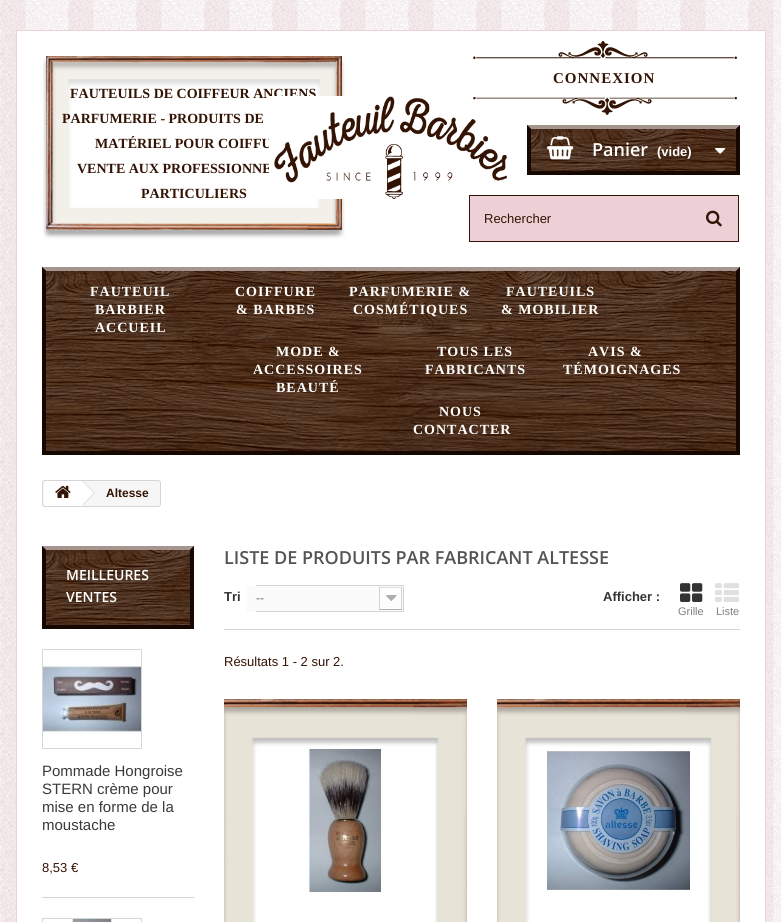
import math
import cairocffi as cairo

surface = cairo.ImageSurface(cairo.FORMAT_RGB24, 781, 922)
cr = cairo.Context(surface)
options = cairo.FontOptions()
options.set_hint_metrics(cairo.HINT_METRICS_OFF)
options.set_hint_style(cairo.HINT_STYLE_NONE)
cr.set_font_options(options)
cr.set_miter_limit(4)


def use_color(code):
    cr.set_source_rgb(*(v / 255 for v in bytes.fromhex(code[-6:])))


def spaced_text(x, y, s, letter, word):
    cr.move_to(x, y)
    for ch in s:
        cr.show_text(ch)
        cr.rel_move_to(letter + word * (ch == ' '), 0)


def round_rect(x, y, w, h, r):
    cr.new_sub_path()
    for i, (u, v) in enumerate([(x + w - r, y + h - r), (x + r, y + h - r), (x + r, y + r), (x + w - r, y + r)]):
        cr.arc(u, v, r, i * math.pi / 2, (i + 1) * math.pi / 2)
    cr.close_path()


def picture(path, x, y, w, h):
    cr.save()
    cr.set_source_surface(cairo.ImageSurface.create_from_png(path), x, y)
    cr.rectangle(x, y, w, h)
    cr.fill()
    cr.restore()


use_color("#ffffff")
cr.paint()
picture("img1.png", 0, 0, 781, 922)
use_color("#ecd1d7")
cr.rectangle(16, 30, 750, 1)
cr.fill()
cr.rectangle(765, 30, 1, 450)
cr.fill()
cr.rectangle(16, 30, 1, 450)
cr.fill()
use_color("#ffffff")
cr.rectangle(17, 31, 748, 891)
cr.fill()
picture("img3.png", 43, 56, 302, 183)
cr.select_font_face("Liberation Serif", cairo.FONT_SLANT_NORMAL, cairo.FONT_WEIGHT_BOLD)
cr.set_font_size(14)
use_color("#331303")
cr.move_to(70, 98)
cr.show_text("FAUTEUILS DE COIFFEUR ANCIENS")
cr.move_to(95, 148)
cr.show_text("MATÉRIEL POUR COIFFU")
cr.move_to(77, 173)
cr.show_text("VENTE AUX PROFESSIONNE")
picture("img4.png", 269, 96, 238, 103)
picture("img2.png", 473, 41, 264, 74)
cr.set_font_size(15)
spaced_text(553, 83, "CONNEXION", 1, 0)
cr.set_font_size(14)
cr.move_to(62, 123)
cr.show_text("PARFUMERIE - PRODUITS DE")
cr.move_to(141, 198)
cr.show_text("PARTICULIERS")
picture("img5.png", 527, 125, 213, 46)
use_color("#a6958e")
cr.new_path()
cr.move_to(527, 125)
cr.line_to(740, 125)
cr.line_to(736, 129)
cr.line_to(531, 129)
cr.close_path()
cr.fill()
use_color("#160801")
cr.new_path()
cr.move_to(740, 125)
cr.line_to(740, 175)
cr.line_to(736, 171)
cr.line_to(736, 129)
cr.close_path()
cr.fill()
cr.rectangle(527, 171, 213, 4)
cr.fill()
cr.new_path()
cr.move_to(527, 175)
cr.line_to(527, 125)
cr.line_to(531, 129)
cr.line_to(531, 171)
cr.close_path()
cr.fill()
picture("img6.png", 547, 136, 27, 24)
cr.select_font_face("Open Sans SemiBold")
cr.set_font_size(18)
use_color("#ffffff")
cr.move_to(592, 156)
cr.show_text("Panier")
cr.select_font_face("Liberation Sans", cairo.FONT_SLANT_NORMAL, cairo.FONT_WEIGHT_BOLD)
cr.set_font_size(13)
cr.move_to(657, 156)
cr.show_text("(vide)")
picture("img7.png", 715, 148, 11, 6)
cr.rectangle(469.5, 195.5, 269, 46)
use_color("#331303")
cr.set_line_width(1)
cr.stroke()
use_color("#ecd0d6")
cr.rectangle(470, 196, 268, 45)
cr.fill()
cr.select_font_face("Liberation Sans")
use_color("#331303")
cr.move_to(484, 223)
cr.show_text("Rechercher")
picture("img8.png", 706, 210, 16, 17)
picture("img9.png", 42, 267, 698, 184)
use_color("#a6958e")
cr.new_path()
cr.move_to(42, 267)
cr.line_to(740, 267)
cr.line_to(736, 271)
cr.line_to(46, 271)
cr.close_path()
cr.fill()
use_color("#160801")
cr.new_path()
cr.move_to(740, 267)
cr.line_to(740, 455)
cr.line_to(736, 451)
cr.line_to(736, 271)
cr.close_path()
cr.fill()
cr.rectangle(42, 451, 698, 4)
cr.fill()
cr.new_path()
cr.move_to(42, 455)
cr.line_to(42, 267)
cr.line_to(46, 271)
cr.line_to(46, 451)
cr.close_path()
cr.fill()
cr.select_font_face("Liberation Serif", cairo.FONT_SLANT_NORMAL, cairo.FONT_WEIGHT_BOLD)
cr.set_font_size(14)
use_color("#ffffff")
spaced_text(90, 296, "FAUTEUIL", 1, 0)
spaced_text(95, 314, "BARBIER", 1, 0)
spaced_text(95, 332, "ACCUEIL", 1, 0)
spaced_text(235, 296, "COIFFURE", 1, 0)
spaced_text(236, 314, "& BARBES", 1, 0)
spaced_text(349, 296, "PARFUMERIE &", 1, 0)
spaced_text(353, 314, "COSMÉTIQUES", 1, 0)
spaced_text(506, 296, "FAUTEUILS", 1, 0)
spaced_text(501, 314, "& MOBILIER", 1, 0)
spaced_text(276, 356, "MODE &", 1, 0)
spaced_text(253, 374, "ACCESSOIRES", 1, 0)
spaced_text(276, 392, "BEAUTÉ", 1, 0)
spaced_text(437, 356, "TOUS LES", 1, 0)
spaced_text(425, 374, "FABRICANTS", 1, 0)
spaced_text(588, 356, "AVIS &", 1, 0)
spaced_text(563, 374, "TÉMOIGNAGES", 1, 0)
spaced_text(439, 416, "NOUS", 1, 0)
spaced_text(413, 434, "CONTACTER", 1, 0)
use_color("#ecd1d7")
cr.rectangle(765, 480, 1, 442)
cr.fill()
cr.rectangle(16, 480, 1, 442)
cr.fill()
use_color("#f6f6f6")
round_rect(42.5, 480.5, 118, 26, 2.5)
cr.fill_preserve()
use_color("#d6d4d4")
cr.stroke()
use_color("#ffffff")
cr.new_path()
cr.move_to(47, 481)
cr.line_to(82, 481)
cr.line_to(82, 506)
cr.line_to(47, 506)
cr.curve_to(45.5, 506, 44, 504.5, 44, 503)
cr.line_to(44, 484)
cr.curve_to(44, 482.5, 45.5, 481, 47, 481)
cr.close_path()
cr.fill()
cr.new_path()
cr.move_to(84, 481.5)
cr.line_to(94, 491.5)
cr.curve_to(94.5, 492.5, 94.5, 493.5, 94, 494.5)
cr.line_to(84, 504.5)
cr.curve_to(83, 505, 82, 505, 81, 504.5)
cr.line_to(71, 494.5)
cr.curve_to(70.5, 493.5, 70.5, 492.5, 71, 491.5)
cr.line_to(81, 481.5)
cr.curve_to(82, 481, 83, 481, 84, 481.5)
cr.close_path()
cr.fill()
picture("img10.png", 55, 485, 16, 13)
use_color("#d6d4d4")
cr.new_path()
cr.move_to(83, 481)
cr.line_to(94.5, 492.5)
cr.line_to(94, 493)
cr.line_to(82.5, 481.5)
cr.close_path()
cr.move_to(94, 493)
cr.line_to(94.5, 493.5)
cr.line_to(83, 505)
cr.line_to(82.5, 504.5)
cr.close_path()
cr.fill()
cr.select_font_face("Liberation Sans", cairo.FONT_SLANT_NORMAL, cairo.FONT_WEIGHT_BOLD)
cr.set_font_size(12)
use_color("#331303")
cr.move_to(106, 497)
cr.show_text("Altesse")
picture("img11.png", 42, 546, 152, 79)
use_color("#a6958e")
cr.new_path()
cr.move_to(42, 546)
cr.line_to(194, 546)
cr.line_to(190, 550)
cr.line_to(46, 550)
cr.close_path()
cr.fill()
use_color("#160801")
cr.new_path()
cr.move_to(194, 546)
cr.line_to(194, 629)
cr.line_to(190, 625)
cr.line_to(190, 550)
cr.close_path()
cr.fill()
cr.rectangle(42, 625, 152, 4)
cr.fill()
cr.new_path()
cr.move_to(42, 629)
cr.line_to(42, 546)
cr.line_to(46, 550)
cr.line_to(46, 625)
cr.close_path()
cr.fill()
cr.select_font_face("Open Sans SemiBold")
cr.set_font_size(14)
use_color("#ffffff")
cr.move_to(66, 580)
cr.show_text("MEILLEURES")
cr.move_to(66, 602)
cr.show_text("VENTES")
use_color("#d6d4d4")
cr.rectangle(42, 897, 152, 1)
cr.fill()
cr.rectangle(42.5, 649.5, 99, 99)
cr.stroke()
picture("img12.png", 43, 665, 98, 69)
cr.select_font_face("Liberation Sans")
cr.set_font_size(15)
use_color("#3a3939")
cr.move_to(42, 776)
cr.show_text("Pommade Hongroise")
cr.move_to(42, 794)
cr.show_text("STERN crème pour")
cr.move_to(42, 812)
cr.show_text("mise en forme de la")
cr.move_to(42, 830)
cr.show_text("moustache")
cr.set_font_size(13)
use_color("#331303")
cr.move_to(42, 872)
cr.show_text("8,53 €")
cr.rectangle(42.5, 918.5, 99, 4)
use_color("#d6d4d4")
cr.stroke()
picture("img13.png", 72, 919, 40, 3)
cr.select_font_face("Open Sans SemiBold")
cr.set_font_size(18)
use_color("#555454")
cr.move_to(224, 564)
cr.show_text("LISTE DE PRODUITS PAR FABRICANT ALTESSE")
use_color("#d6d4d4")
cr.rectangle(224, 629, 516, 1)
cr.fill()
cr.select_font_face("Liberation Sans", cairo.FONT_SLANT_NORMAL, cairo.FONT_WEIGHT_BOLD)
cr.set_font_size(13)
use_color("#333333")
cr.move_to(224, 601)
cr.show_text("Tri")
use_color("#fbfbfb")
cr.rectangle(246, 585, 10, 27)
cr.fill()
picture("img14.png", 256, 585, 148, 27)
cr.select_font_face("Liberation Sans")
cr.set_font_size(12)
use_color("#666666")
cr.move_to(256, 602)
cr.show_text("--")
cr.select_font_face("Liberation Sans", cairo.FONT_SLANT_NORMAL, cairo.FONT_WEIGHT_BOLD)
cr.set_font_size(13)
use_color("#333333")
cr.move_to(603, 601)
cr.show_text("Afficher :")
picture("img15.png", 680, 583, 23, 19)
cr.select_font_face("Liberation Sans")
cr.set_font_size(11)
use_color("#808080")
cr.move_to(678, 615)
cr.show_text("Grille")
picture("img16.png", 715, 583, 24, 19)
cr.move_to(716, 615)
cr.show_text("Liste")
cr.set_font_size(13)
use_color("#331303")
cr.move_to(224, 666)
cr.show_text("Résultats 1 - 2 sur 2.")
picture("img17.png", 224, 699, 243, 223)
picture("img18.png", 309, 749, 73, 143)
picture("img17.png", 497, 699, 243, 223)
picture("img19.png", 547, 751, 143, 139)
surface.write_to_png("result.png")
